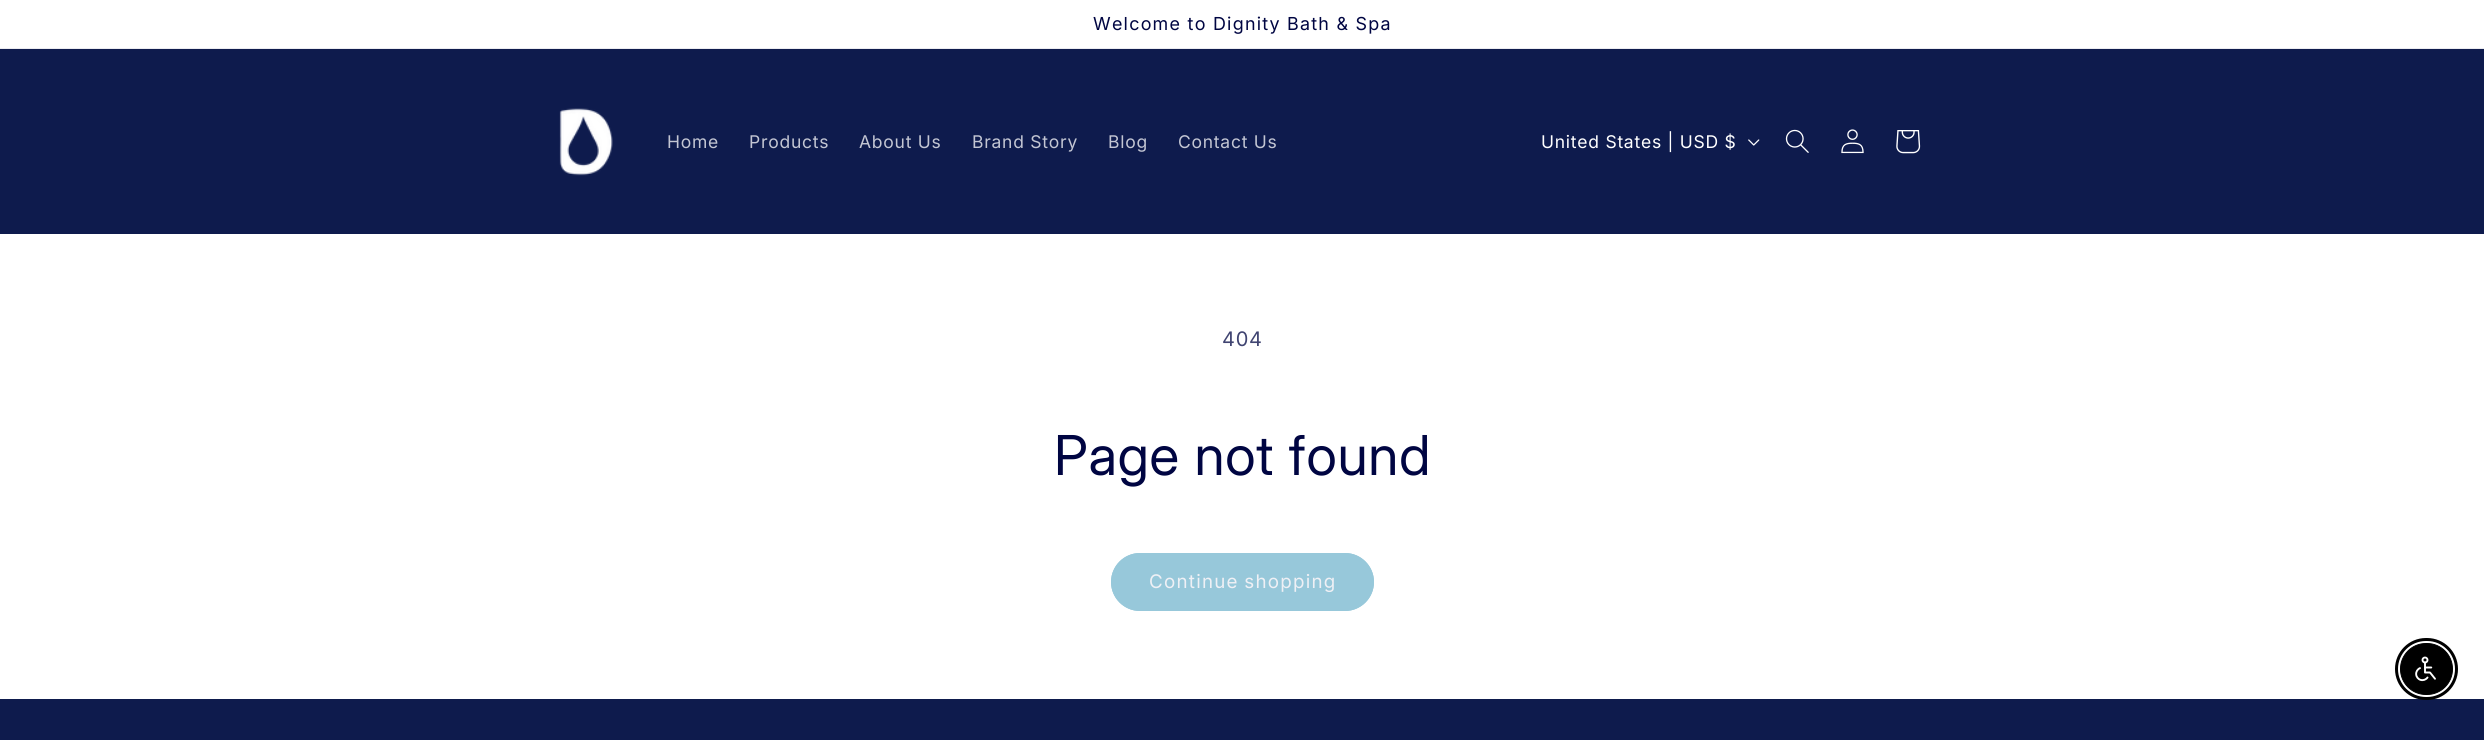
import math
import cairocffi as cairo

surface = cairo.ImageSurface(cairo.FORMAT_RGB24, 2484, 740)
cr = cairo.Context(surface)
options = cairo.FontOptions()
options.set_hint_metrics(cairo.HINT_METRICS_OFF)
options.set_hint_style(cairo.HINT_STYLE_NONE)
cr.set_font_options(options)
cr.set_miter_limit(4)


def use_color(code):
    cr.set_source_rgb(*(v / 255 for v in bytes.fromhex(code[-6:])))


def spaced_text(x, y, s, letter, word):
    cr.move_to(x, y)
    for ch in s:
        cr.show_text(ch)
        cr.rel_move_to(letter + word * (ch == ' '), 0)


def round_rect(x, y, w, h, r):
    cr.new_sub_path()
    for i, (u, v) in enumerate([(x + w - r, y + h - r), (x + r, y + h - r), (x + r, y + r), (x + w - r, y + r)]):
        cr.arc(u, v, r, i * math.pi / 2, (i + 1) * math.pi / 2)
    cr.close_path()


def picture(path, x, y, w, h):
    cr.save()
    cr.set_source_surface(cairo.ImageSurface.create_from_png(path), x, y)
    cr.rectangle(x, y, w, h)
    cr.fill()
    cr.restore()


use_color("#ffffff")
cr.paint()
use_color("#ebebf0")
cr.rectangle(0, 48, 2484, 1)
cr.fill()
cr.select_font_face("Inter")
cr.set_font_size(17.9)
use_color("#000542")
spaced_text(1093, 30, "Welcome to Dignity Bath & Spa", 1.25, 0)
use_color("#0e1b4d")
cr.rectangle(0, 49, 2484, 185)
cr.fill()
picture("img1.png", 559, 108, 54, 68)
cr.set_font_size(17.5)
use_color("#c3c6d3")
spaced_text(667, 148, "Home", 0.75, 0)
spaced_text(749, 148, "Products", 0.75, 0)
spaced_text(859, 148, "About Us", 0.75, 0)
spaced_text(972, 148, "Brand Story", 0.75, 0)
spaced_text(1108, 148, "Blog", 0.75, 0)
spaced_text(1178, 148, "Contact Us", 0.75, 0)
use_color("#ffffff")
spaced_text(1541, 148, "United States | USD $", 0.75, 0)
picture("img2.png", 1748, 139, 12, 7)
picture("img3.png", 1785, 129, 24, 24)
picture("img4.png", 1841, 129, 23, 25)
picture("img5.png", 1896, 130, 25, 24)
cr.set_font_size(20)
use_color("#404471")
spaced_text(1222, 346, "404", 0.75, 0)
cr.select_font_face("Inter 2")
cr.set_font_size(55)
use_color("#000542")
spaced_text(1054, 475, "Page not found", 0.8, 0)
use_color("#97c8da")
round_rect(1111, 553, 263, 58, 29)
cr.fill()
round_rect(1111.5, 553.5, 262, 57, 28.5)
cr.set_line_width(1)
cr.stroke()
cr.select_font_face("Inter")
cr.set_font_size(18.75)
use_color("#eff0f5")
spaced_text(1149, 588, "Continue shopping", 1.25, -1)
use_color("#0e1b4d")
cr.rectangle(0, 699, 2484, 41)
cr.fill()
round_rect(2396.5, 639.5, 60, 59, 29.5)
use_color("#000000")
cr.set_line_width(3)
cr.stroke()
round_rect(2400.5, 643.5, 52, 51, 25.5)
cr.fill_preserve()
cr.set_line_width(1)
cr.stroke()
picture("img6.png", 2415, 656, 21, 26)
surface.write_to_png("result.png")
